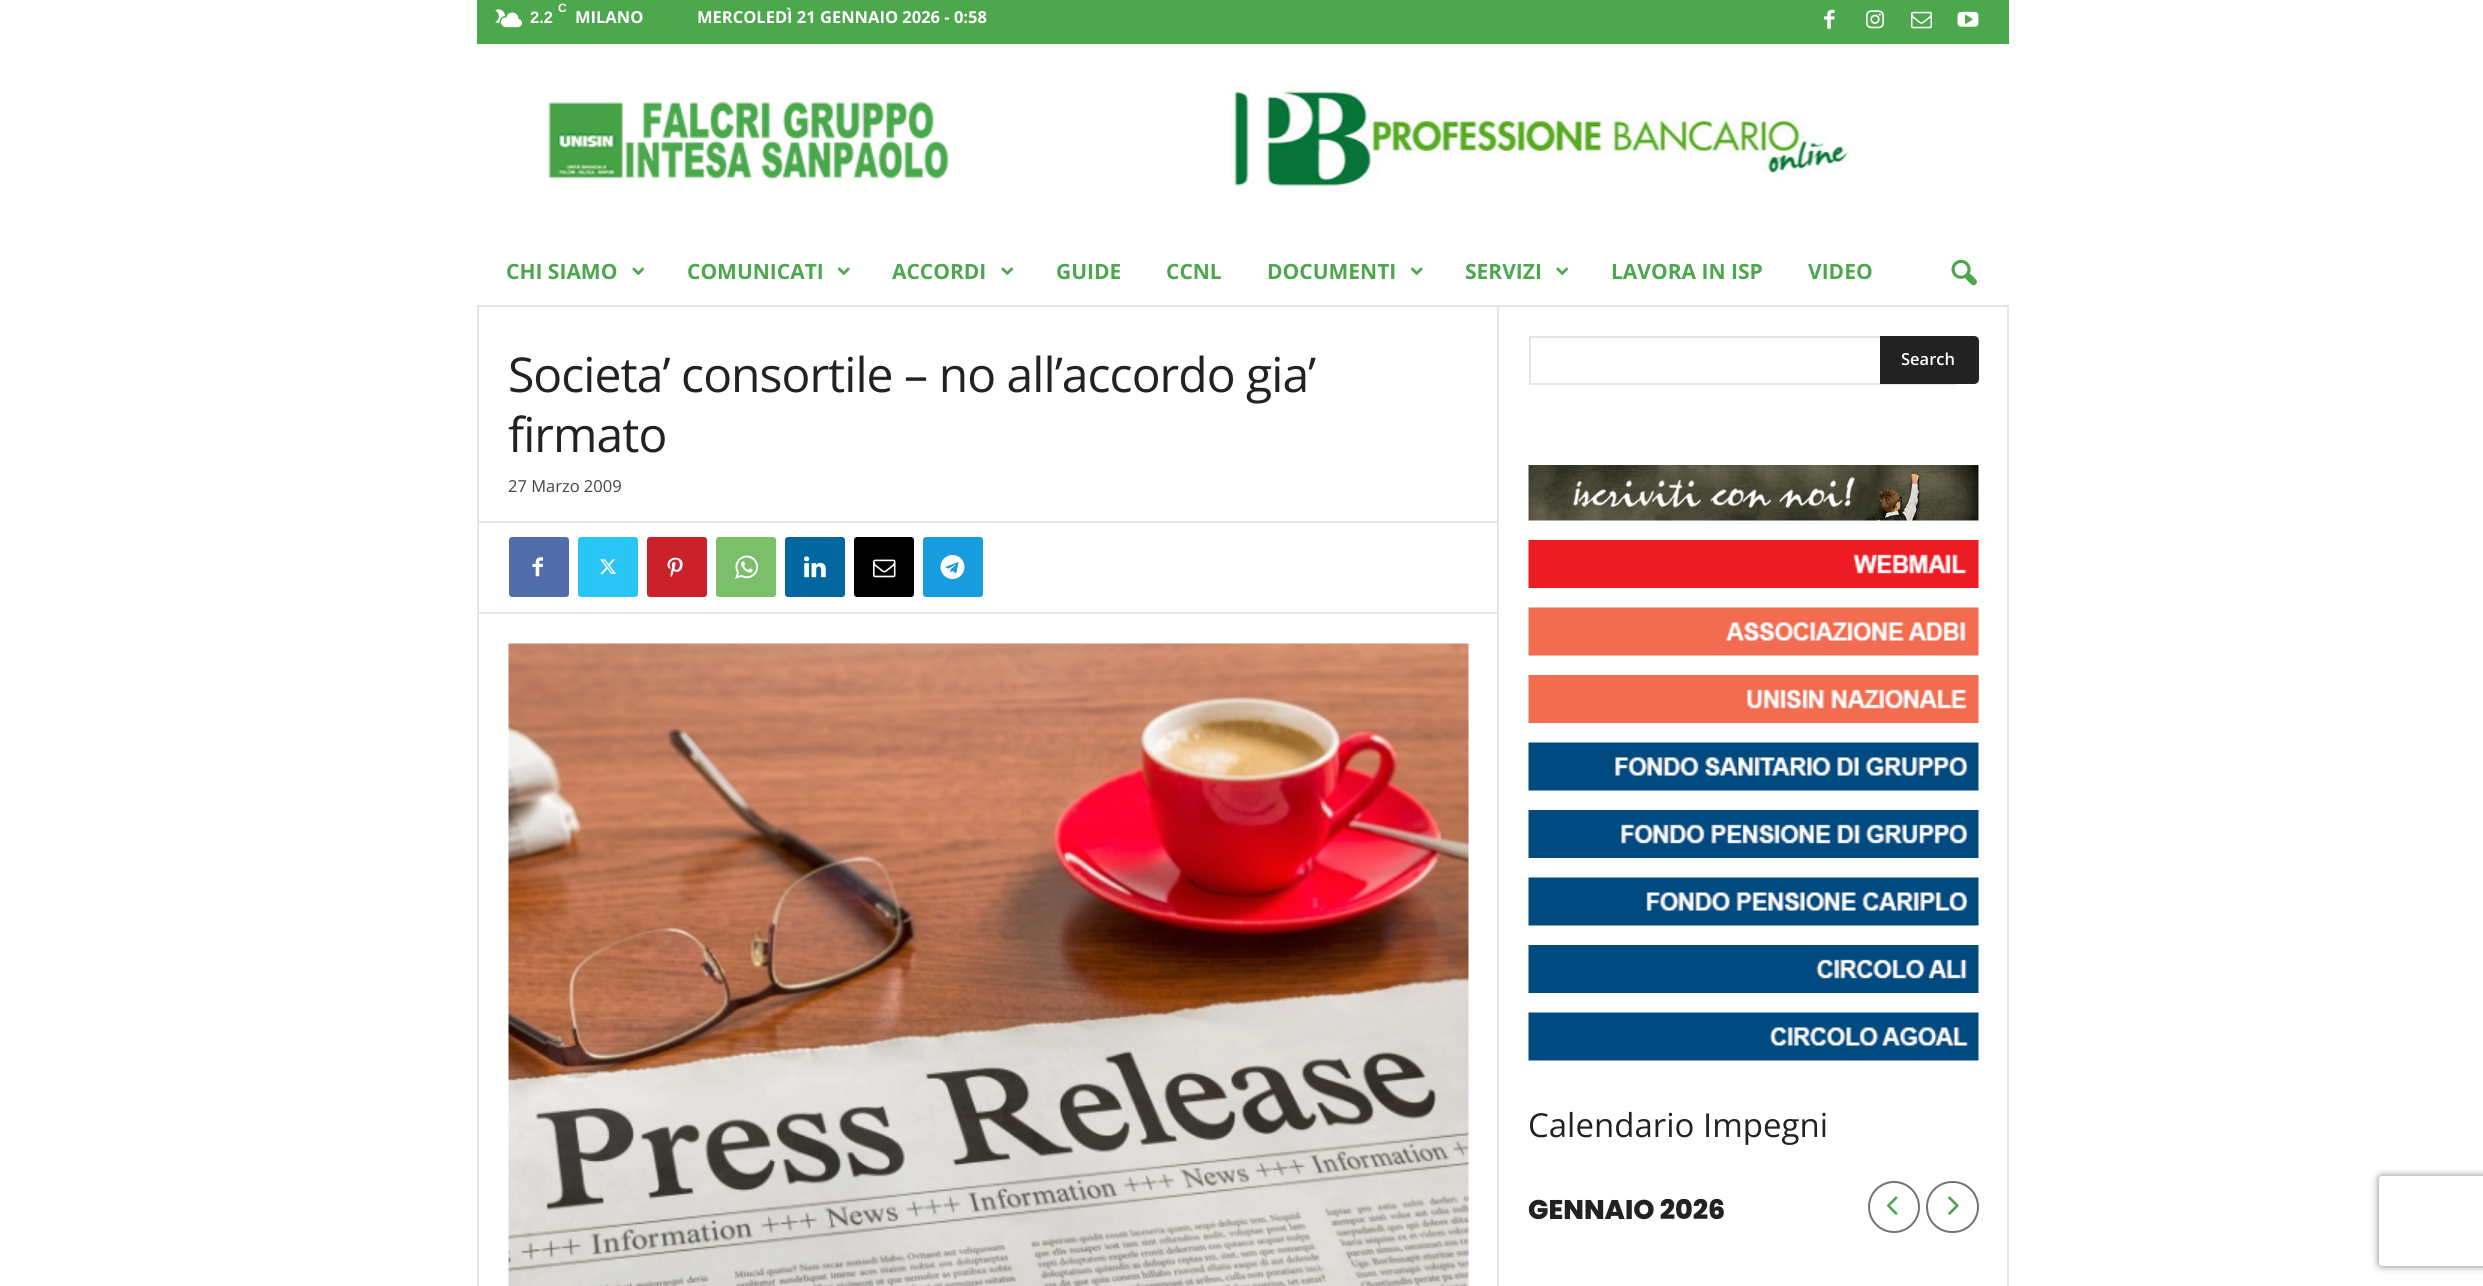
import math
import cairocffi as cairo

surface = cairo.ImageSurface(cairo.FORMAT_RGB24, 2483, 1286)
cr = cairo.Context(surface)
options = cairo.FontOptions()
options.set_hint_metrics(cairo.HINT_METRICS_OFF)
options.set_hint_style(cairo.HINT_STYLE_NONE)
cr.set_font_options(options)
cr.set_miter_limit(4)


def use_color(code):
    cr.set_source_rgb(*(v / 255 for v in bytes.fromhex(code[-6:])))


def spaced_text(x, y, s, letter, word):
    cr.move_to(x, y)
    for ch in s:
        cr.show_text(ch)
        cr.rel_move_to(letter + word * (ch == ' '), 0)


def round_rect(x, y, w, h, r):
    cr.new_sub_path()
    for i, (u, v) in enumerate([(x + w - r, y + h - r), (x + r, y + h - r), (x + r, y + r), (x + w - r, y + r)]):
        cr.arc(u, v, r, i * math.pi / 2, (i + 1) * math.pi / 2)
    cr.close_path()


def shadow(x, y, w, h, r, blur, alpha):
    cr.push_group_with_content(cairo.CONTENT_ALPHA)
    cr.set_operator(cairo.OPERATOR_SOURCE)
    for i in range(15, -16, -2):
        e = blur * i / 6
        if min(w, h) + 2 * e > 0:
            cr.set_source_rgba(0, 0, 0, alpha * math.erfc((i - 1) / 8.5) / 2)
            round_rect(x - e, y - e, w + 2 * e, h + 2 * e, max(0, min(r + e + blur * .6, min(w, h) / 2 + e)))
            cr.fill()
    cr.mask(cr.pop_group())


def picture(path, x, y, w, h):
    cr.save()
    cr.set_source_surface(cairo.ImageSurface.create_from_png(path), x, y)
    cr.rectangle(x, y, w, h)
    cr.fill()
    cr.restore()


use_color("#ffffff")
cr.paint()
use_color("#4ca74d")
cr.rectangle(477, 0, 1532, 44)
cr.fill()
picture("img1.png", 495, 9, 27, 19)
cr.select_font_face("Liberation Sans", cairo.FONT_SLANT_NORMAL, cairo.FONT_WEIGHT_BOLD)
cr.set_font_size(12)
use_color("#ffffff")
cr.move_to(558, 12)
cr.show_text("C")
cr.set_font_size(16.5)
cr.move_to(530, 23)
cr.show_text("2.2")
cr.select_font_face("Open Sans", cairo.FONT_SLANT_NORMAL, cairo.FONT_WEIGHT_BOLD)
cr.move_to(575, 23)
cr.show_text("MILANO")
cr.move_to(697, 23)
cr.show_text("MERCOLEDÌ 21 GENNAIO 2026 - 0:58")
picture("img2.png", 1824, 9, 11, 20)
picture("img3.png", 1866, 10, 18, 19)
picture("img4.png", 1911, 11, 21, 18)
picture("img5.png", 1957, 11, 22, 16)
picture("img6.png", 548, 101, 401, 78)
picture("img7.png", 1230, 85, 620, 109)
use_color("#e6e6e6")
cr.rectangle(477, 305, 2, 981)
cr.fill()
cr.rectangle(1497, 305, 2, 981)
cr.fill()
cr.rectangle(2007, 305, 2, 981)
cr.fill()
cr.rectangle(477, 305, 1532, 2)
cr.fill()
cr.set_font_size(21)
use_color("#4ca74d")
cr.move_to(506, 279)
cr.show_text("CHI SIAMO")
picture("img8.png", 632, 267, 13, 9)
cr.move_to(687, 279)
cr.show_text("COMUNICATI")
picture("img9.png", 837, 267, 13, 9)
cr.move_to(892, 279)
cr.show_text("ACCORDI")
picture("img8.png", 1001, 267, 13, 9)
cr.move_to(1056, 279)
cr.show_text("GUIDE")
cr.move_to(1166, 279)
cr.show_text("CCNL")
cr.move_to(1267, 279)
cr.show_text("DOCUMENTI")
picture("img9.png", 1410, 267, 13, 9)
cr.move_to(1465, 279)
cr.show_text("SERVIZI")
picture("img8.png", 1556, 267, 13, 9)
cr.move_to(1611, 279)
cr.show_text("LAVORA IN ISP")
cr.move_to(1808, 279)
cr.show_text("VIDEO")
picture("img10.png", 1951, 259, 26, 27)
cr.select_font_face("Open Sans")
cr.set_font_size(48)
use_color("#222222")
spaced_text(508, 392, "Societa’ consortile – no all’accordo gia’", -0.95, 0)
spaced_text(508, 452, "firmato", -0.95, 0)
cr.set_font_size(16.5)
use_color("#444444")
cr.move_to(508, 492)
cr.show_text("27 Marzo 2009")
use_color("#e6e6e6")
cr.rectangle(479, 521, 1018, 2)
cr.fill()
use_color("#516eab")
round_rect(509, 537, 60, 60, 3)
cr.fill()
picture("img11.png", 532, 557, 11, 20)
use_color("#29c5f6")
round_rect(578, 537, 60, 60, 3)
cr.fill()
picture("img12.png", 600, 559, 16, 15)
use_color("#ca212a")
round_rect(647, 537, 60, 60, 3)
cr.fill()
picture("img13.png", 667, 557, 16, 21)
use_color("#7bbf6a")
round_rect(716, 537, 60, 60, 3)
cr.fill()
picture("img14.png", 735, 555, 24, 24)
use_color("#0266a0")
round_rect(785, 537, 60, 60, 3)
cr.fill()
picture("img15.png", 804, 556, 22, 22)
use_color("#000000")
round_rect(854, 537, 60, 60, 3)
cr.fill()
picture("img16.png", 873, 559, 23, 19)
use_color("#179cde")
round_rect(923, 537, 60, 60, 3)
cr.fill()
picture("img17.png", 940, 555, 25, 24)
use_color("#e6e6e6")
cr.rectangle(479, 612, 1018, 2)
cr.fill()
picture("img18.png", 508, 643, 961, 643)
cr.rectangle(1529, 336, 351, 2)
cr.fill()
cr.rectangle(1529, 383, 427, 2)
cr.fill()
cr.rectangle(1529, 336, 2, 48)
cr.fill()
use_color("#222222")
cr.new_path()
cr.move_to(1880, 336)
cr.line_to(1974, 336)
cr.curve_to(1977, 336, 1979, 338, 1979, 341)
cr.line_to(1979, 379)
cr.curve_to(1979, 382, 1977, 384, 1974, 384)
cr.line_to(1880, 384)
cr.close_path()
cr.fill()
cr.select_font_face("Open Sans SemiBold")
use_color("#ffffff")
cr.move_to(1901, 365)
cr.show_text("Search")
picture("img19.png", 1528, 465, 451, 56)
picture("img20.png", 1528, 540, 451, 48)
picture("img21.png", 1528, 607, 451, 49)
picture("img22.png", 1528, 675, 451, 48)
picture("img23.png", 1528, 742, 451, 49)
picture("img24.png", 1528, 810, 451, 48)
picture("img25.png", 1528, 877, 451, 49)
picture("img26.png", 1528, 945, 451, 48)
picture("img27.png", 1528, 1012, 451, 49)
cr.select_font_face("Open Sans")
cr.set_font_size(33)
use_color("#222222")
cr.move_to(1528, 1137)
cr.show_text("Calendario Impegni")
cr.select_font_face("Poppins ExtraBold")
cr.set_font_size(27)
cr.move_to(1528, 1219)
cr.show_text("GENNAIO 2026")
cr.new_path()
cr.arc(1894, 1207, 25, 0, 2 * math.pi)
use_color("#737373")
cr.stroke()
picture("img28.png", 1887, 1196, 11, 19)
round_rect(1927, 1182, 51, 50, 25)
cr.stroke()
picture("img29.png", 1948, 1196, 11, 19)
cr.save()
cr.set_fill_rule(cairo.FILL_RULE_EVEN_ODD)
cr.new_path()
cr.move_to(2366, 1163)
cr.line_to(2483, 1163)
cr.line_to(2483, 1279)
cr.line_to(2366, 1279)
cr.close_path()
cr.move_to(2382, 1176)
cr.line_to(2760, 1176)
cr.curve_to(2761.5, 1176, 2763, 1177.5, 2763, 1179)
cr.line_to(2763, 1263)
cr.curve_to(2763, 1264.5, 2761.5, 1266, 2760, 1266)
cr.line_to(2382, 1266)
cr.curve_to(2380.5, 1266, 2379, 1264.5, 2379, 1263)
cr.line_to(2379, 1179)
cr.curve_to(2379, 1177.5, 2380.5, 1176, 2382, 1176)
cr.close_path()
cr.clip()
use_color("#808080")
shadow(2379, 1176, 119, 90, 3, 4, 1)
cr.restore()
surface.write_to_png("result.png")
